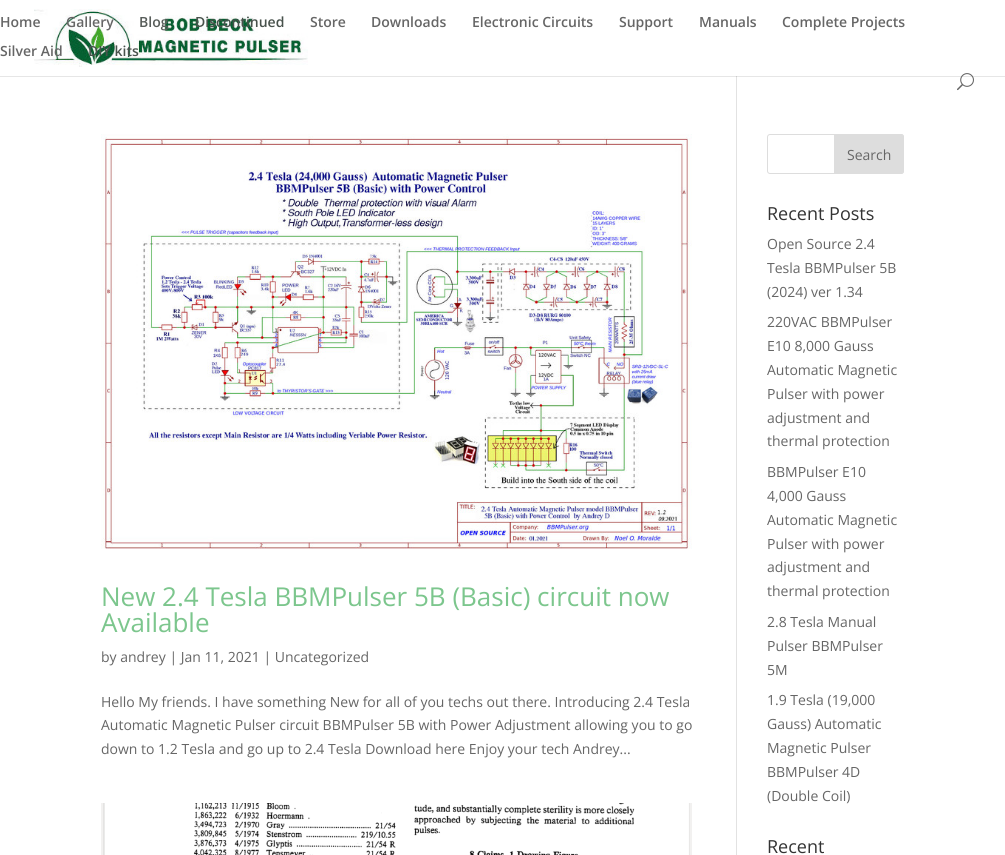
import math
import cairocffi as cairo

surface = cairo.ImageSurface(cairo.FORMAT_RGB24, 1005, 855)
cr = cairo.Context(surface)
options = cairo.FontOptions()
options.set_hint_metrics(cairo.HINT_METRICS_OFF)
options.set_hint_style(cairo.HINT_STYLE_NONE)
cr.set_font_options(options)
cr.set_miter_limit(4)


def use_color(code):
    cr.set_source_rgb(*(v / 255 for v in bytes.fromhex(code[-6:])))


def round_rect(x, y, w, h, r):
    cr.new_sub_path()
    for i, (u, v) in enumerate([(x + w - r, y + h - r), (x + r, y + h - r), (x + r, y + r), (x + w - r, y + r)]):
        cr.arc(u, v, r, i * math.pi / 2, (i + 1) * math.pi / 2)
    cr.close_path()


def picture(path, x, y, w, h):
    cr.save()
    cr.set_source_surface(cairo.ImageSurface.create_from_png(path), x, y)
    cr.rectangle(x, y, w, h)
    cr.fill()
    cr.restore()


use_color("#ffffff")
cr.paint()
picture("img1.png", 34, 9, 274, 58)
cr.select_font_face("Open Sans SemiBold")
cr.set_font_size(14)
use_color("#666666")
cr.move_to(0, 27)
cr.show_text("Home")
cr.move_to(66, 27)
cr.show_text("Gallery")
use_color("#585d5a")
cr.move_to(139, 27)
cr.show_text("Blog")
use_color("#48524c")
cr.move_to(195, 27)
cr.show_text("Discontinued")
use_color("#666666")
cr.move_to(310, 27)
cr.show_text("Store")
cr.move_to(371, 27)
cr.show_text("Downloads")
cr.move_to(472, 27)
cr.show_text("Electronic Circuits")
cr.move_to(619, 27)
cr.show_text("Support")
cr.move_to(699, 27)
cr.show_text("Manuals")
cr.move_to(782, 27)
cr.show_text("Complete Projects")
cr.move_to(0, 56)
cr.show_text("Silver Aid")
use_color("#48524c")
cr.move_to(88, 56)
cr.show_text("DIY kits")
use_color("#e6e6e6")
cr.rectangle(0, 76, 1005, 1)
cr.fill()
picture("img2.png", 957, 73, 17, 18)
use_color("#e2e2e2")
cr.rectangle(736, 76, 1, 779)
cr.fill()
use_color("#cbcbcb")
cr.rectangle(736, 76, 1, 1)
cr.fill()
picture("img3.png", 101, 134, 591, 415)
cr.select_font_face("Open Sans")
cr.set_font_size(26)
use_color("#7cc68d")
cr.move_to(101, 606)
cr.show_text("New 2.4 Tesla BBMPulser 5B (Basic) circuit now")
cr.move_to(101, 632)
cr.show_text("Available")
cr.set_font_size(14)
use_color("#666666")
cr.move_to(101, 662)
cr.show_text("by andrey | Jan 11, 2021 | Uncategorized")
cr.move_to(101, 707)
cr.show_text("Hello My friends. I have something New for all of you techs out there. Introducing 2.4 Tesla")
cr.move_to(101, 730)
cr.show_text("Automatic Magnetic Pulser circuit BBMPulser 5B with Power Adjustment allowing you to go")
cr.move_to(101, 754)
cr.show_text("down to 1.2 Tesla and go up to 2.4 Tesla Download here Enjoy your tech Andrey...")
picture("img4.png", 101, 803, 591, 52)
round_rect(767.5, 134.5, 136, 39, 2.5)
use_color("#dddddd")
cr.set_line_width(1)
cr.stroke()
cr.new_path()
cr.move_to(834.5, 134.5)
cr.line_to(901, 134.5)
cr.curve_to(902.5, 134.5, 903.5, 135.5, 903.5, 137)
cr.line_to(903.5, 171)
cr.curve_to(903.5, 172.5, 902.5, 173.5, 901, 173.5)
cr.line_to(834.5, 173.5)
cr.close_path()
cr.fill_preserve()
cr.stroke()
use_color("#666666")
cr.move_to(847, 160)
cr.show_text("Search")
cr.set_font_size(18)
use_color("#333333")
cr.move_to(767, 220)
cr.show_text("Recent Posts")
cr.set_font_size(14)
use_color("#666666")
cr.move_to(767, 249)
cr.show_text("Open Source 2.4")
cr.move_to(767, 273)
cr.show_text("Tesla BBMPulser 5B")
cr.move_to(767, 297)
cr.show_text("(2024) ver 1.34")
cr.move_to(767, 327)
cr.show_text("220VAC BBMPulser")
cr.move_to(767, 351)
cr.show_text("E10 8,000 Gauss")
cr.move_to(767, 375)
cr.show_text("Automatic Magnetic")
cr.move_to(767, 399)
cr.show_text("Pulser with power")
cr.move_to(767, 423)
cr.show_text("adjustment and")
cr.move_to(767, 446)
cr.show_text("thermal protection")
cr.move_to(767, 477)
cr.show_text("BBMPulser E10")
cr.move_to(767, 501)
cr.show_text("4,000 Gauss")
cr.move_to(767, 525)
cr.show_text("Automatic Magnetic")
cr.move_to(767, 549)
cr.show_text("Pulser with power")
cr.move_to(767, 572)
cr.show_text("adjustment and")
cr.move_to(767, 596)
cr.show_text("thermal protection")
cr.move_to(767, 627)
cr.show_text("2.8 Tesla Manual")
cr.move_to(767, 651)
cr.show_text("Pulser BBMPulser")
cr.move_to(767, 675)
cr.show_text("5M")
cr.move_to(767, 705)
cr.show_text("1.9 Tesla (19,000")
cr.move_to(767, 729)
cr.show_text("Gauss) Automatic")
cr.move_to(767, 753)
cr.show_text("Magnetic Pulser")
cr.move_to(767, 777)
cr.show_text("BBMPulser 4D")
cr.move_to(767, 801)
cr.show_text("(Double Coil)")
cr.set_font_size(18)
use_color("#333333")
cr.move_to(767, 853)
cr.show_text("Recent")
surface.write_to_png("result.png")
